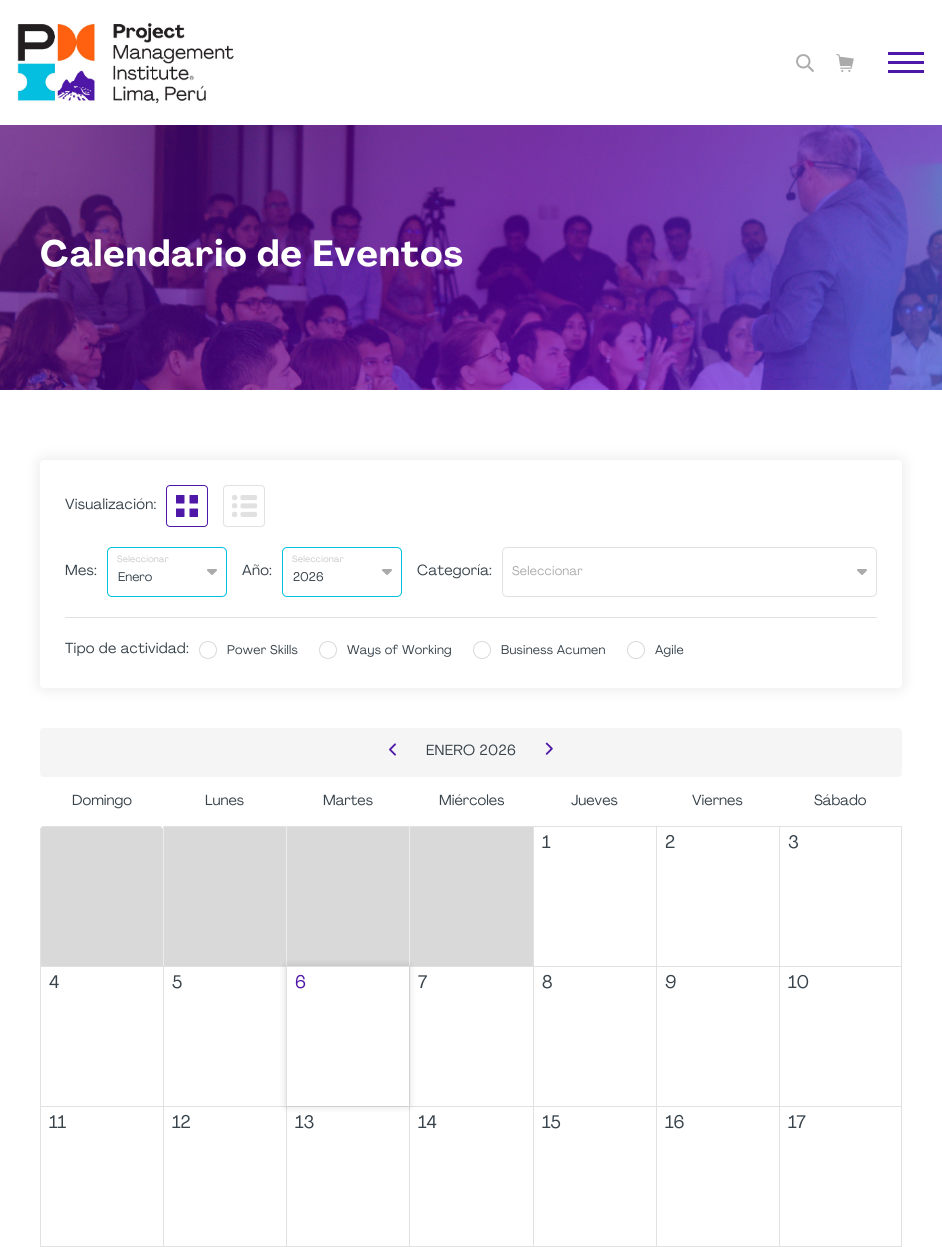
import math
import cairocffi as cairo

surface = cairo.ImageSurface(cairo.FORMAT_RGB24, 942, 1247)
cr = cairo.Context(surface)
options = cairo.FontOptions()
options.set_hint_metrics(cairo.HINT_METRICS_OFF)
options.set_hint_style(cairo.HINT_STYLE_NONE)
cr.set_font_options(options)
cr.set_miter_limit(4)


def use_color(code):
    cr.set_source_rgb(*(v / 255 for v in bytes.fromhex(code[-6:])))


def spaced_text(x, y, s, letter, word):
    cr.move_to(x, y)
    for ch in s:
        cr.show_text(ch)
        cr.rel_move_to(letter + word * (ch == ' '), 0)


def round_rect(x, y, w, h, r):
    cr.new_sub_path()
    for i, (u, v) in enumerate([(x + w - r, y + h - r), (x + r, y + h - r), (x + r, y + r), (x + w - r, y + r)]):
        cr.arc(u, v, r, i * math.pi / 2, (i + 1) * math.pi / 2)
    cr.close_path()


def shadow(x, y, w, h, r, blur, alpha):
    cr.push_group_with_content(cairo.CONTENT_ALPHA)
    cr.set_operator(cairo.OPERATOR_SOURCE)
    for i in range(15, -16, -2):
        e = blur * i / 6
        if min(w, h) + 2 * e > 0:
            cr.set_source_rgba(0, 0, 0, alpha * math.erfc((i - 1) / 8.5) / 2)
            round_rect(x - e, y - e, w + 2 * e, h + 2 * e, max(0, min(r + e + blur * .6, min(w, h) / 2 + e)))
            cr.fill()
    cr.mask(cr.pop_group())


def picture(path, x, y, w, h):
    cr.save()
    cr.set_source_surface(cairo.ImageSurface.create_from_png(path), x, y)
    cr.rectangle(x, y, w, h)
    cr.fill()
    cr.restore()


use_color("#ffffff")
cr.paint()
picture("img1.png", 17, 22, 217, 82)
picture("img2.png", 796, 54, 18, 18)
picture("img3.png", 836, 54, 18, 18)
use_color("#4f17a7")
cr.rectangle(888, 52, 36, 3)
cr.fill()
cr.rectangle(888, 61, 36, 3)
cr.fill()
cr.rectangle(888, 70, 36, 3)
cr.fill()
picture("img4.png", 0, 125, 942, 265)
cr.select_font_face("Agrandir", cairo.FONT_SLANT_NORMAL, cairo.FONT_WEIGHT_BOLD)
cr.set_font_size(36)
use_color("#ffffff")
spaced_text(40, 266, "Calendario de Eventos", 1.1, 0)
cr.save()
cr.set_fill_rule(cairo.FILL_RULE_EVEN_ODD)
cr.new_path()
cr.move_to(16, 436)
cr.line_to(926, 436)
cr.line_to(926, 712)
cr.line_to(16, 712)
cr.close_path()
cr.move_to(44, 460)
cr.line_to(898, 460)
cr.curve_to(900, 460, 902, 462, 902, 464)
cr.line_to(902, 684)
cr.curve_to(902, 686, 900, 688, 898, 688)
cr.line_to(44, 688)
cr.curve_to(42, 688, 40, 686, 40, 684)
cr.line_to(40, 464)
cr.curve_to(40, 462, 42, 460, 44, 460)
cr.close_path()
cr.clip()
use_color("#000000")
shadow(40, 460, 862, 228, 4, 7.5, 0.1)
cr.restore()
cr.select_font_face("Agrandir")
cr.set_font_size(14.5)
use_color("#37424a")
spaced_text(65, 509, "Visualización:", 0.25, 0)
round_rect(166.5, 485.5, 41, 41, 3.5)
use_color("#4f17a7")
cr.set_line_width(1)
cr.stroke()
picture("img5.png", 176, 495, 22, 22)
round_rect(223.5, 485.5, 41, 41, 3.5)
use_color("#e1e1e1")
cr.stroke()
picture("img6.png", 232, 495, 25, 22)
use_color("#37424a")
spaced_text(65, 575, "Mes:", 0.25, 0)
round_rect(107.5, 547.5, 119, 49, 4.5)
use_color("#05bfe0")
cr.stroke()
cr.set_font_size(9)
use_color("#c7c7c7")
spaced_text(117, 562, "Seleccionar", 0.25, 0)
cr.set_font_size(12.5)
use_color("#37424a")
cr.move_to(118, 581)
cr.show_text("Enero")
picture("img7.png", 207, 569, 10, 6)
cr.set_font_size(14.5)
spaced_text(242, 575, "Año:", 0.25, 0)
round_rect(282.5, 547.5, 119, 49, 4.5)
use_color("#05bfe0")
cr.stroke()
cr.set_font_size(9)
use_color("#c7c7c7")
spaced_text(292, 562, "Seleccionar", 0.25, 0)
cr.save()
cr.rectangle(293, 572, 78, 12)
cr.clip()
cr.set_font_size(12.5)
use_color("#37424a")
cr.move_to(293, 581)
cr.show_text("2026")
cr.restore()
picture("img7.png", 382, 569, 10, 6)
cr.set_font_size(14.5)
use_color("#37424a")
spaced_text(417, 575, "Categoría:", 0.25, 0)
round_rect(502.5, 547.5, 374, 49, 4.5)
use_color("#e1e1e1")
cr.stroke()
cr.set_font_size(12.5)
use_color("#ababab")
spaced_text(512, 575, "Seleccionar", 0.25, 0)
picture("img7.png", 857, 569, 10, 6)
use_color("#e1e1e1")
cr.rectangle(65, 617, 812, 1)
cr.fill()
cr.set_font_size(14.5)
use_color("#37424a")
spaced_text(65, 653, "Tipo de actividad:", 0.25, 0)
cr.new_path()
cr.arc(208, 650, 8.5, 0, 2 * math.pi)
use_color("#d9d9d9")
cr.stroke()
cr.set_font_size(12.5)
use_color("#37424a")
spaced_text(227, 654, "Power Skills", 0.25, 0)
cr.new_path()
cr.arc(328, 650, 8.5, 0, 2 * math.pi)
use_color("#d9d9d9")
cr.stroke()
use_color("#37424a")
spaced_text(347, 654, "Ways of Working", 0.25, 0)
cr.new_path()
cr.arc(482, 650, 8.5, 0, 2 * math.pi)
use_color("#d9d9d9")
cr.stroke()
use_color("#37424a")
spaced_text(501, 654, "Business Acumen", 0.25, 0)
cr.new_path()
cr.arc(636, 650, 8.5, 0, 2 * math.pi)
use_color("#d9d9d9")
cr.stroke()
use_color("#37424a")
spaced_text(655, 654, "Agile", 0.25, 0)
use_color("#f5f5f5")
round_rect(40, 728, 862, 49, 4)
cr.fill()
picture("img8.png", 389, 743, 7, 13)
cr.set_font_size(14.5)
use_color("#37424a")
spaced_text(426, 755, "ENERO 2026", 0.25, 0)
picture("img9.png", 545, 742, 8, 13)
cr.move_to(72, 805)
cr.show_text("Domingo")
cr.move_to(205, 805)
cr.show_text("Lunes")
cr.move_to(323, 805)
cr.show_text("Martes")
cr.move_to(439, 805)
cr.show_text("Miércoles")
cr.move_to(571, 805)
cr.show_text("Jueves")
cr.move_to(692, 805)
cr.show_text("Viernes")
cr.move_to(814, 805)
cr.show_text("Sábado")
use_color("#d9d9d9")
cr.new_path()
cr.move_to(44, 826)
cr.line_to(159, 826)
cr.curve_to(161, 826, 163, 828, 163, 830)
cr.line_to(163, 966)
cr.line_to(40, 966)
cr.line_to(40, 830)
cr.curve_to(40, 828, 42, 826, 44, 826)
cr.close_path()
cr.fill()
use_color("#e1e1e1")
cr.set_fill_rule(cairo.FILL_RULE_EVEN_ODD)
cr.new_path()
cr.move_to(44, 826)
cr.line_to(159, 826)
cr.curve_to(161, 826, 163, 828, 163, 830)
cr.line_to(163, 966)
cr.line_to(40, 966)
cr.line_to(40, 830)
cr.curve_to(40, 828, 42, 826, 44, 826)
cr.close_path()
cr.move_to(44, 827)
cr.line_to(159, 827)
cr.curve_to(161, 827, 163, 828, 163, 830)
cr.line_to(163, 966)
cr.line_to(41, 966)
cr.line_to(41, 830)
cr.curve_to(41, 828, 42, 827, 44, 827)
cr.close_path()
cr.fill()
use_color("#d9d9d9")
cr.rectangle(164, 827, 122, 139)
cr.fill()
use_color("#e1e1e1")
cr.rectangle(163, 826, 739, 1)
cr.fill()
use_color("#ececec")
cr.rectangle(163, 826, 1, 140)
cr.fill()
use_color("#d9d9d9")
cr.rectangle(287, 827, 122, 139)
cr.fill()
use_color("#ececec")
cr.rectangle(286, 826, 1, 140)
cr.fill()
use_color("#d9d9d9")
cr.rectangle(410, 827, 123, 139)
cr.fill()
use_color("#ececec")
cr.rectangle(409, 826, 1, 140)
cr.fill()
use_color("#e1e1e1")
cr.rectangle(533, 826, 1, 140)
cr.fill()
cr.set_font_size(18)
use_color("#37424a")
cr.move_to(542, 848)
cr.show_text("1")
use_color("#e1e1e1")
cr.rectangle(656, 826, 1, 140)
cr.fill()
use_color("#37424a")
cr.move_to(665, 848)
cr.show_text("2")
use_color("#e1e1e1")
cr.rectangle(901, 826, 1, 140)
cr.fill()
cr.rectangle(779, 826, 1, 140)
cr.fill()
use_color("#37424a")
cr.move_to(788, 848)
cr.show_text("3")
use_color("#e1e1e1")
cr.rectangle(40, 966, 246, 1)
cr.fill()
cr.rectangle(40, 966, 1, 140)
cr.fill()
use_color("#37424a")
cr.move_to(49, 988)
cr.show_text("4")
use_color("#e1e1e1")
cr.rectangle(163, 966, 1, 140)
cr.fill()
use_color("#37424a")
cr.move_to(172, 988)
cr.show_text("5")
use_color("#e1e1e1")
cr.rectangle(409, 966, 493, 1)
cr.fill()
cr.rectangle(409, 966, 1, 140)
cr.fill()
cr.rectangle(40, 1106, 862, 1)
cr.fill()
cr.rectangle(286, 1106, 1, 140)
cr.fill()
cr.rectangle(409, 1106, 1, 140)
cr.fill()
cr.save()
cr.new_path()
cr.move_to(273, 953)
cr.line_to(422, 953)
cr.line_to(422, 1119)
cr.line_to(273, 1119)
cr.close_path()
cr.move_to(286, 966)
cr.line_to(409, 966)
cr.line_to(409, 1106)
cr.line_to(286, 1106)
cr.close_path()
cr.clip()
use_color("#000000")
shadow(286, 966, 123, 140, 0, 4, 0.15)
cr.restore()
cr.rectangle(286, 966, 123, 1)
cr.fill()
cr.rectangle(286, 966, 1, 140)
cr.fill()
use_color("#4f17a7")
cr.move_to(295, 988)
cr.show_text("6")
use_color("#37424a")
cr.move_to(418, 988)
cr.show_text("7")
use_color("#e1e1e1")
cr.rectangle(533, 966, 1, 140)
cr.fill()
use_color("#37424a")
cr.move_to(542, 988)
cr.show_text("8")
use_color("#e1e1e1")
cr.rectangle(656, 966, 1, 140)
cr.fill()
use_color("#37424a")
cr.move_to(665, 988)
cr.show_text("9")
use_color("#e1e1e1")
cr.rectangle(901, 966, 1, 140)
cr.fill()
cr.rectangle(779, 966, 1, 140)
cr.fill()
use_color("#37424a")
cr.move_to(788, 988)
cr.show_text("10")
use_color("#e1e1e1")
cr.rectangle(40, 1106, 1, 140)
cr.fill()
use_color("#37424a")
cr.move_to(49, 1128)
cr.show_text("11")
use_color("#e1e1e1")
cr.rectangle(163, 1106, 1, 140)
cr.fill()
use_color("#37424a")
cr.move_to(172, 1128)
cr.show_text("12")
cr.move_to(295, 1128)
cr.show_text("13")
cr.move_to(418, 1128)
cr.show_text("14")
use_color("#e1e1e1")
cr.rectangle(533, 1106, 1, 140)
cr.fill()
use_color("#37424a")
cr.move_to(542, 1128)
cr.show_text("15")
use_color("#e1e1e1")
cr.rectangle(656, 1106, 1, 140)
cr.fill()
use_color("#37424a")
cr.move_to(665, 1128)
cr.show_text("16")
use_color("#e1e1e1")
cr.rectangle(901, 1106, 1, 140)
cr.fill()
cr.rectangle(779, 1106, 1, 140)
cr.fill()
use_color("#37424a")
cr.move_to(788, 1128)
cr.show_text("17")
use_color("#e1e1e1")
cr.rectangle(40, 1246, 862, 1)
cr.fill()
surface.write_to_png("result.png")
